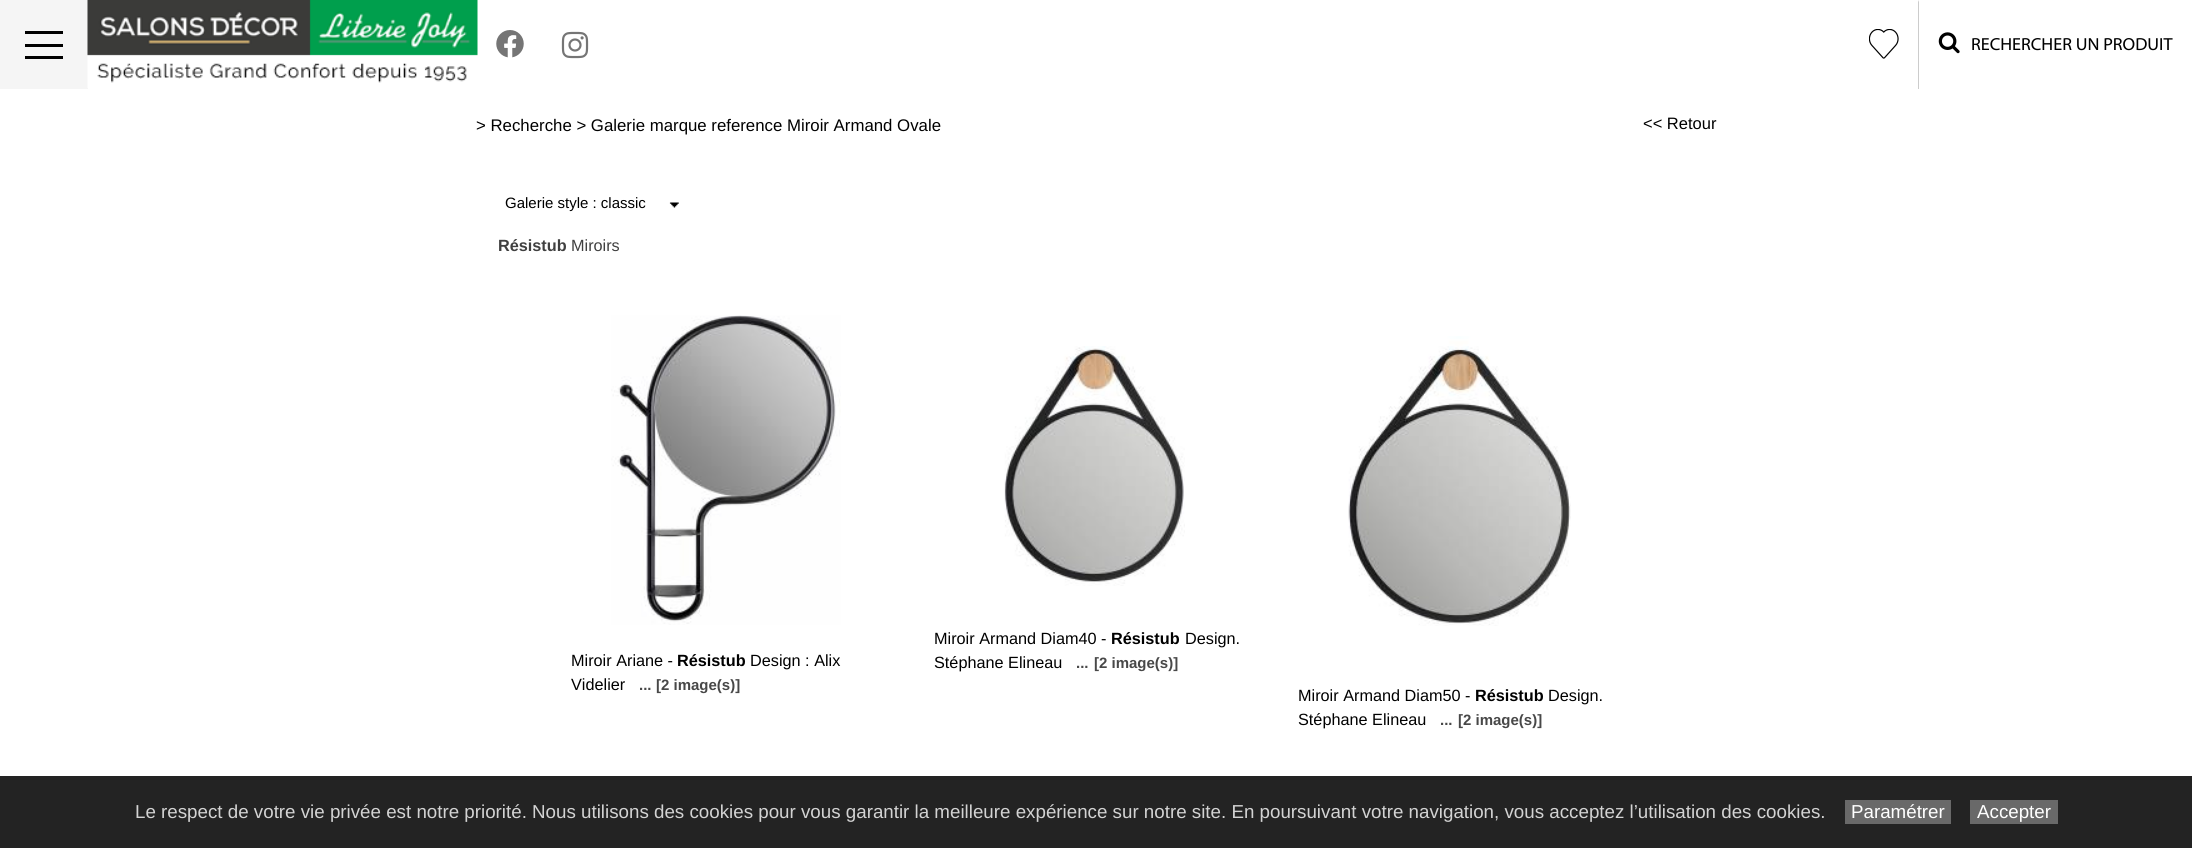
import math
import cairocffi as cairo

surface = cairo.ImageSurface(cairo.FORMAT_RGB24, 2192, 848)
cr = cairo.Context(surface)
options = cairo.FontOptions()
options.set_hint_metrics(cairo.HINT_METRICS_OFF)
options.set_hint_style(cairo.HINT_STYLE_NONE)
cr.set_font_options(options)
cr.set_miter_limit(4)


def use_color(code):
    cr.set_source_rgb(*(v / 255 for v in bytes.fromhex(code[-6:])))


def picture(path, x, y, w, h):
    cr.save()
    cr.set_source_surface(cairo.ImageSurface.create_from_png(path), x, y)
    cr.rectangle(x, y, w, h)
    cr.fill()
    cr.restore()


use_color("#ffffff")
cr.paint()
use_color("#f5f5f5")
cr.rectangle(0, 0, 88, 89)
cr.fill()
use_color("#000000")
cr.rectangle(25, 31, 38, 3)
cr.fill()
cr.rectangle(25, 44, 38, 3)
cr.fill()
cr.rectangle(25, 56, 38, 3)
cr.fill()
picture("img1.png", 87, 0, 391, 88)
picture("img2.png", 496, 30, 28, 28)
picture("img3.png", 561, 31, 28, 28)
picture("img4.png", 1869, 29, 30, 30)
use_color("#cccccc")
cr.new_path()
cr.move_to(1918, 89)
cr.line_to(1918, 0)
cr.line_to(1919, 2)
cr.line_to(1919, 89)
cr.close_path()
cr.fill()
picture("img5.png", 1938, 32, 22, 22)
cr.select_font_face("Myriad")
cr.set_font_size(17.5)
use_color("#000000")
cr.move_to(1971, 50)
cr.show_text("RECHERCHER UN PRODUIT")
cr.select_font_face("Liberation Sans")
cr.set_font_size(16.8)
cr.move_to(476, 131)
cr.show_text("> Recherche > Galerie marque reference Miroir Armand Ovale")
cr.set_font_size(16.5)
cr.move_to(1643, 129)
cr.show_text("<< Retour")
picture("img6.png", 669, 202, 10, 6)
cr.set_font_size(15)
cr.move_to(505, 208)
cr.show_text("Galerie style : classic")
cr.select_font_face("Liberation Sans", cairo.FONT_SLANT_NORMAL, cairo.FONT_WEIGHT_BOLD)
cr.set_font_size(16.25)
use_color("#404040")
cr.move_to(498, 251)
cr.show_text("Résistub")
cr.select_font_face("Liberation Sans")
cr.move_to(571, 251)
cr.show_text("Miroirs")
picture("img7.png", 611, 315, 230, 310)
use_color("#000000")
cr.move_to(571, 666)
cr.show_text("Miroir Ariane -")
cr.select_font_face("Liberation Sans", cairo.FONT_SLANT_NORMAL, cairo.FONT_WEIGHT_BOLD)
cr.move_to(677, 666)
cr.show_text("Résistub")
cr.select_font_face("Liberation Sans")
cr.move_to(750, 666)
cr.show_text("Design : Alix")
cr.move_to(571, 690)
cr.show_text("Videlier")
cr.select_font_face("Liberation Sans", cairo.FONT_SLANT_NORMAL, cairo.FONT_WEIGHT_BOLD)
cr.set_font_size(15)
use_color("#484848")
cr.move_to(639, 690)
cr.show_text("...")
cr.move_to(656, 690)
cr.show_text("[2 image(s)]")
picture("img8.png", 1004, 346, 181, 240)
cr.select_font_face("Liberation Sans")
cr.set_font_size(16.25)
use_color("#000000")
cr.move_to(934, 644)
cr.show_text("Miroir Armand Diam40 -")
cr.select_font_face("Liberation Sans", cairo.FONT_SLANT_NORMAL, cairo.FONT_WEIGHT_BOLD)
cr.move_to(1111, 644)
cr.show_text("Résistub")
cr.select_font_face("Liberation Sans")
cr.move_to(1185, 644)
cr.show_text("Design.")
cr.move_to(934, 668)
cr.show_text("Stéphane Elineau")
cr.select_font_face("Liberation Sans", cairo.FONT_SLANT_NORMAL, cairo.FONT_WEIGHT_BOLD)
cr.set_font_size(15)
use_color("#484848")
cr.move_to(1076, 668)
cr.show_text("...")
cr.move_to(1094, 668)
cr.show_text("[2 image(s)]")
picture("img9.png", 1348, 336, 223, 290)
cr.select_font_face("Liberation Sans")
cr.set_font_size(16.25)
use_color("#000000")
cr.move_to(1298, 701)
cr.show_text("Miroir Armand Diam50 -")
cr.select_font_face("Liberation Sans", cairo.FONT_SLANT_NORMAL, cairo.FONT_WEIGHT_BOLD)
cr.move_to(1475, 701)
cr.show_text("Résistub")
cr.select_font_face("Liberation Sans")
cr.move_to(1548, 701)
cr.show_text("Design.")
cr.move_to(1298, 725)
cr.show_text("Stéphane Elineau")
cr.select_font_face("Liberation Sans", cairo.FONT_SLANT_NORMAL, cairo.FONT_WEIGHT_BOLD)
cr.set_font_size(15)
use_color("#484848")
cr.move_to(1440, 725)
cr.show_text("...")
cr.move_to(1458, 725)
cr.show_text("[2 image(s)]")
use_color("#232323")
cr.rectangle(0, 776, 2192, 72)
cr.fill()
cr.select_font_face("Liberation Sans")
cr.set_font_size(18.75)
use_color("#d3d3d3")
cr.move_to(135, 818)
cr.show_text("Le respect de votre vie privée est notre priorité. Nous utilisons des cookies pour vous garantir la meilleure expérience sur notre site. En poursuivant votre navigation, vous acceptez l’utilisation des cookies.")
use_color("#696969")
cr.rectangle(1845, 800, 106, 24)
cr.fill()
use_color("#ffffff")
cr.move_to(1851, 818)
cr.show_text("Paramétrer")
use_color("#696969")
cr.rectangle(1970, 800, 88, 24)
cr.fill()
use_color("#ffffff")
cr.move_to(1977, 818)
cr.show_text("Accepter")
surface.write_to_png("result.png")
